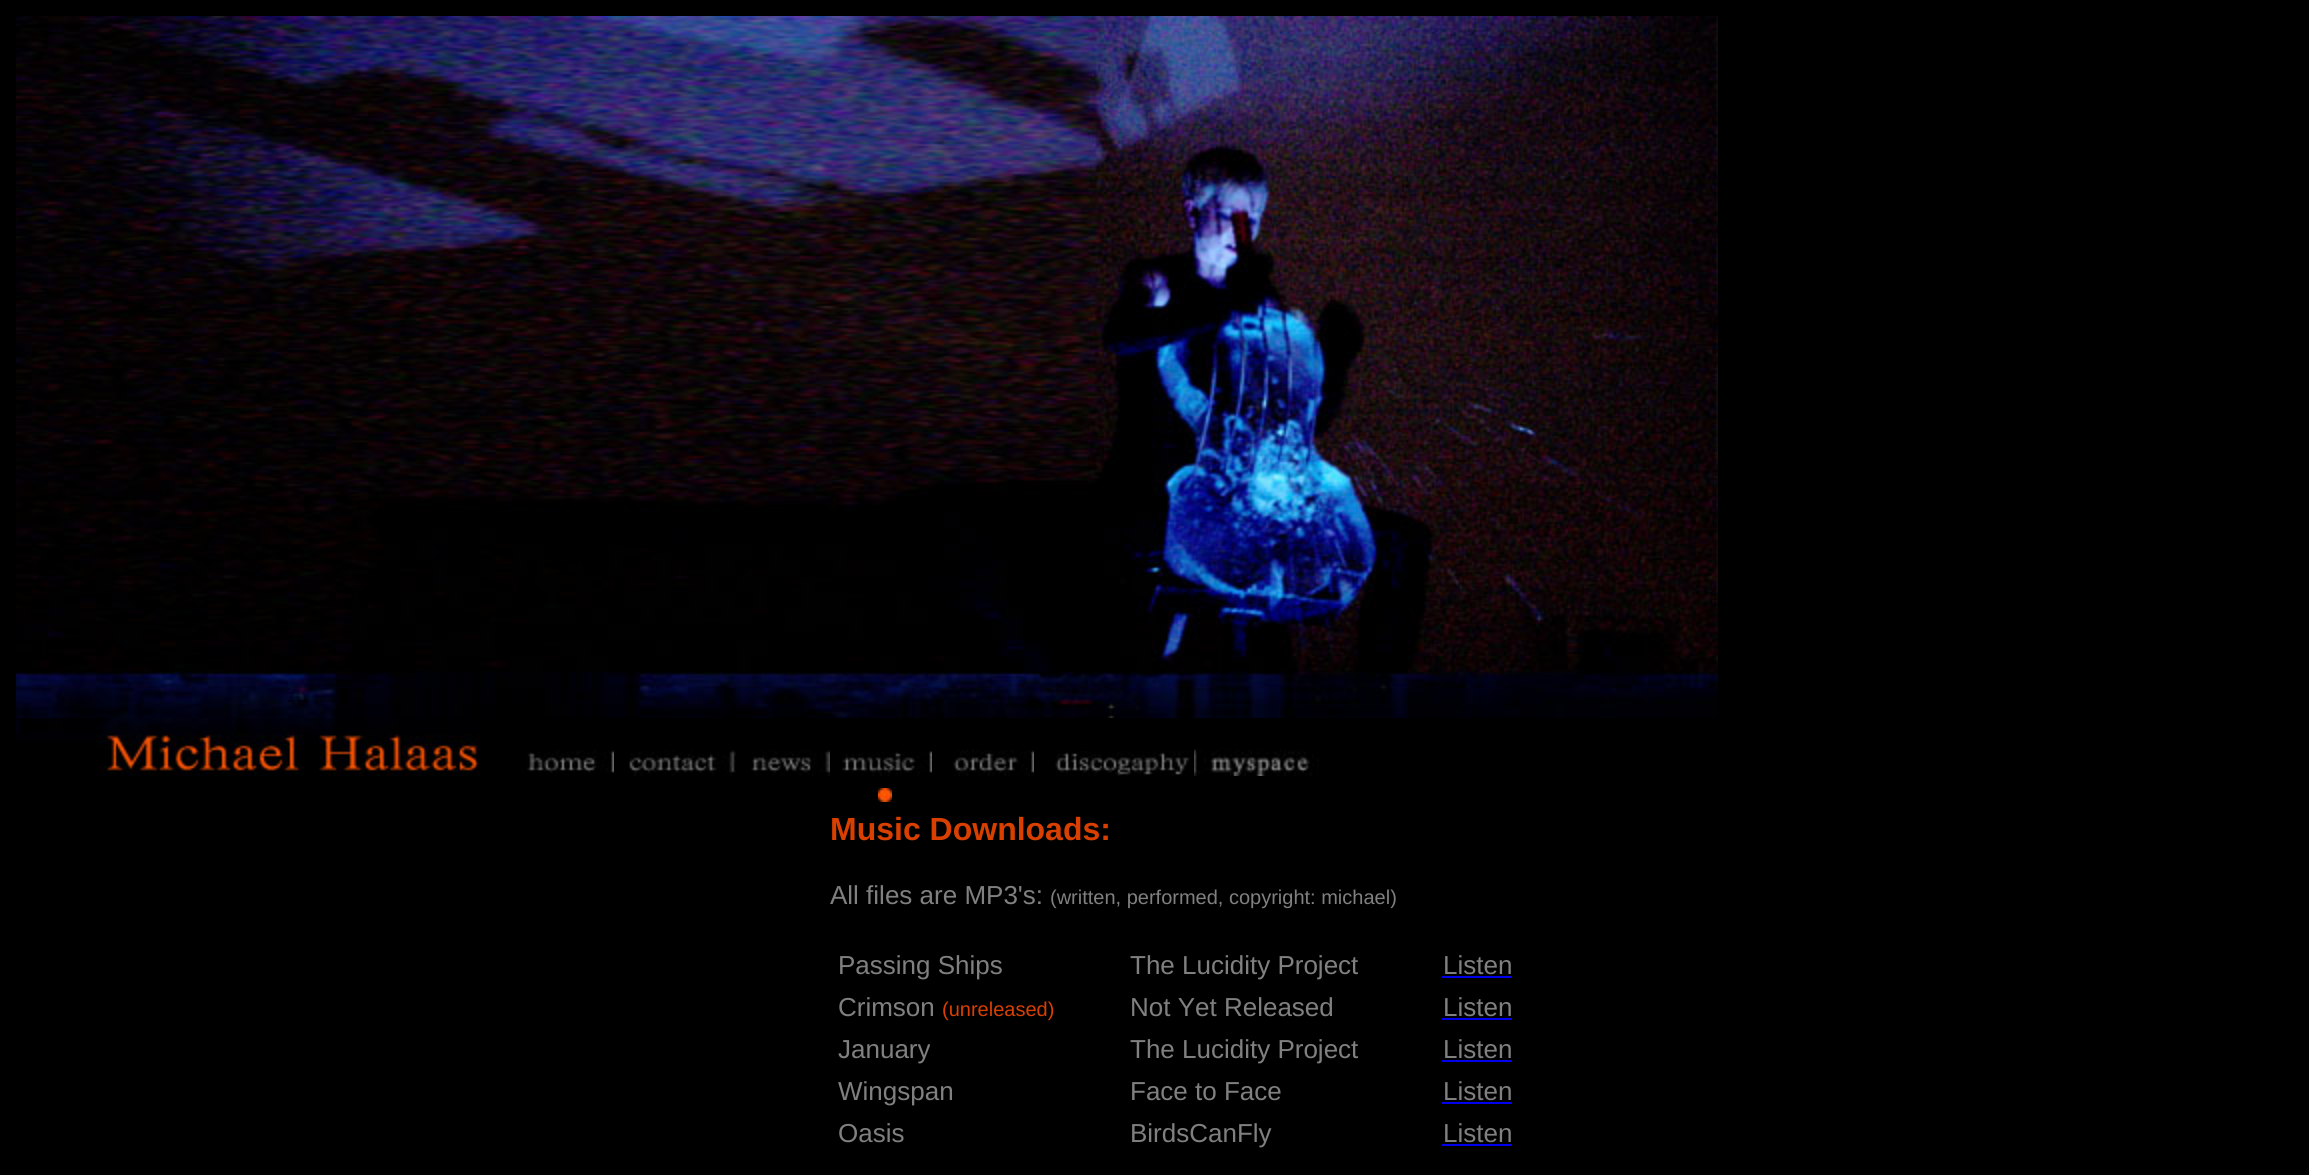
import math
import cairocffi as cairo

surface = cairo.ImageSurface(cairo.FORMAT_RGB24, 2309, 1175)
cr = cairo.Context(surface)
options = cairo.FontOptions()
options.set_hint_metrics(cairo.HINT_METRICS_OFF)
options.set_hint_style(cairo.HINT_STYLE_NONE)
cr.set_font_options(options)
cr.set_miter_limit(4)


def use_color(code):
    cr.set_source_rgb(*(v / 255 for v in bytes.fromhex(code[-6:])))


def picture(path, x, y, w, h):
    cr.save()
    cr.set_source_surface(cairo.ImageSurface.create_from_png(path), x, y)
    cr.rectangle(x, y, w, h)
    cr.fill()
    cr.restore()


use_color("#000000")
cr.paint()
picture("img1.png", 16, 16, 1702, 702)
picture("img2.png", 16, 718, 464, 58)
picture("img3.png", 527, 750, 87, 23)
picture("img4.png", 629, 750, 107, 26)
picture("img5.png", 751, 750, 79, 26)
picture("img6.png", 842, 751, 90, 25)
picture("img7.png", 953, 750, 81, 26)
picture("img8.png", 1055, 751, 135, 25)
picture("img9.png", 1194, 749, 125, 27)
picture("img10.png", 878, 788, 14, 14)
cr.select_font_face("Liberation Sans", cairo.FONT_SLANT_NORMAL, cairo.FONT_WEIGHT_BOLD)
cr.set_font_size(32)
use_color("#d94000")
cr.move_to(830, 840)
cr.show_text("Music Downloads:")
cr.select_font_face("Liberation Sans")
cr.set_font_size(26)
use_color("#808080")
cr.move_to(830, 904)
cr.show_text("All files are MP3's:")
cr.set_font_size(20)
cr.move_to(1050, 904)
cr.show_text("(written, performed, copyright: michael)")
cr.set_font_size(26)
cr.move_to(838, 974)
cr.show_text("Passing Ships")
cr.move_to(1130, 974)
cr.show_text("The Lucidity Project")
cr.move_to(1443, 974)
cr.show_text("Listen")
use_color("#0000ee")
cr.rectangle(1442, 976, 70, 2)
cr.fill()
use_color("#808080")
cr.move_to(838, 1016)
cr.show_text("Crimson")
cr.set_font_size(20)
use_color("#d94000")
cr.move_to(942, 1016)
cr.show_text("(unreleased)")
cr.set_font_size(26)
use_color("#808080")
cr.move_to(1130, 1016)
cr.show_text("Not Yet Released")
cr.move_to(1443, 1016)
cr.show_text("Listen")
use_color("#0000ee")
cr.rectangle(1442, 1018, 70, 2)
cr.fill()
use_color("#808080")
cr.move_to(838, 1058)
cr.show_text("January")
cr.move_to(1130, 1058)
cr.show_text("The Lucidity Project")
cr.move_to(1443, 1058)
cr.show_text("Listen")
use_color("#0000ee")
cr.rectangle(1442, 1060, 70, 2)
cr.fill()
use_color("#808080")
cr.move_to(838, 1100)
cr.show_text("Wingspan")
cr.move_to(1130, 1100)
cr.show_text("Face to Face")
cr.move_to(1443, 1100)
cr.show_text("Listen")
use_color("#0000ee")
cr.rectangle(1442, 1102, 70, 2)
cr.fill()
use_color("#808080")
cr.move_to(838, 1142)
cr.show_text("Oasis")
cr.move_to(1130, 1142)
cr.show_text("BirdsCanFly")
cr.move_to(1443, 1142)
cr.show_text("Listen")
use_color("#0000ee")
cr.rectangle(1442, 1144, 70, 2)
cr.fill()
surface.write_to_png("result.png")
